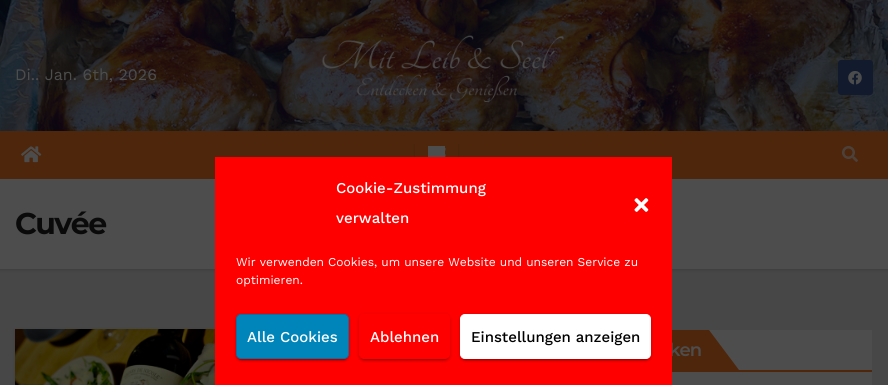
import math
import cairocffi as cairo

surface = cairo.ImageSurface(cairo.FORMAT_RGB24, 888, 385)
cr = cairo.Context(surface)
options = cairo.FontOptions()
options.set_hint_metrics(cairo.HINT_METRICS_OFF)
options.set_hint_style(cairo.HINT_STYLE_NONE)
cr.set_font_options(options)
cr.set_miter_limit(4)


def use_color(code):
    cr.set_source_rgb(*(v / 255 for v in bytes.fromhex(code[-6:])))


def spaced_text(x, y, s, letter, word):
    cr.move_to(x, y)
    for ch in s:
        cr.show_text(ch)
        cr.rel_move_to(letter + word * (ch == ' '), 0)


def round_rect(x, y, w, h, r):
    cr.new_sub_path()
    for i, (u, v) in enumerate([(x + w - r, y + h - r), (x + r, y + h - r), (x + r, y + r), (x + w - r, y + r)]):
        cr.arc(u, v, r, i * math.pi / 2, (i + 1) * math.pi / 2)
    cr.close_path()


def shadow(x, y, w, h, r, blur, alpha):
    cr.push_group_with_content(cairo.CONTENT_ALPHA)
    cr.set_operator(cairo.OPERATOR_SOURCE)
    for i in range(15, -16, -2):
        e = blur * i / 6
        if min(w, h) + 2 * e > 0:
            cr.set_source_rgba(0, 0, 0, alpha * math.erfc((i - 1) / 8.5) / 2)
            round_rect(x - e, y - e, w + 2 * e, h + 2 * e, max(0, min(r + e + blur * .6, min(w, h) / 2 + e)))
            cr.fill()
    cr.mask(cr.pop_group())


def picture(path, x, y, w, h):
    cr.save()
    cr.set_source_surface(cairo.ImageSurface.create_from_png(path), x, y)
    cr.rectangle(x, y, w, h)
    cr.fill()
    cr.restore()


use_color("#474747")
cr.paint()
picture("img1.png", 0, 0, 888, 131)
cr.select_font_face("Work Sans")
cr.set_font_size(16)
use_color("#4d4d4d")
cr.move_to(15, 80)
cr.show_text("Di.. Jan. 6th, 2026")
picture("img2.png", 321, 35, 243, 67)
use_color("#121b2e")
round_rect(838, 60, 35, 35, 3)
cr.fill()
picture("img3.png", 848, 71, 14, 14)
use_color("#000000")
shadow(0, 180, 888, 90, 0, 1.5, 0.15)
use_color("#4d260c")
cr.rectangle(0, 131, 888, 48)
cr.fill()
picture("img4.png", 21, 146, 21, 17)
cr.save()
cr.set_fill_rule(cairo.FILL_RULE_EVEN_ODD)
cr.new_path()
cr.move_to(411, 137)
cr.line_to(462, 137)
cr.line_to(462, 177)
cr.line_to(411, 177)
cr.close_path()
cr.move_to(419, 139)
cr.line_to(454, 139)
cr.curve_to(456, 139, 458, 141, 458, 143)
cr.line_to(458, 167)
cr.curve_to(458, 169, 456, 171, 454, 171)
cr.line_to(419, 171)
cr.curve_to(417, 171, 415, 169, 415, 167)
cr.line_to(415, 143)
cr.curve_to(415, 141, 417, 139, 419, 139)
cr.close_path()
cr.clip()
use_color("#000000")
shadow(415, 141, 43, 32, 4, 1, 0.14)
cr.restore()
use_color("#4d4d4d")
cr.rectangle(428, 146, 17, 11)
cr.fill()
picture("img5.png", 445, 148, 1, 9)
picture("img6.png", 842, 146, 16, 16)
cr.rectangle(0, 179, 888, 90)
cr.fill()
cr.select_font_face("Montserrat", cairo.FONT_SLANT_NORMAL, cairo.FONT_WEIGHT_BOLD)
cr.set_font_size(30)
use_color("#0a0a0a")
spaced_text(15, 234, "Cuvée", -1.5, 0)
use_color("#000000")
shadow(15, 330, 266, 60, 0, 1.5, 0.15)
picture("img7.png", 15, 329, 200, 56)
use_color("#4d4d4d")
cr.rectangle(672, 330, 200, 55)
cr.fill()
use_color("#4d260c")
cr.rectangle(672, 370, 200, 2)
cr.fill()
cr.rectangle(672, 330, 37, 40)
cr.fill()
cr.select_font_face("Montserrat SemiBold")
cr.set_font_size(18)
use_color("#4d4d4d")
spaced_text(669, 356, "ken", -1, 0)
use_color("#4d260c")
cr.new_path()
cr.move_to(709, 370)
cr.line_to(709, 330)
cr.line_to(739, 370)
cr.close_path()
cr.fill()
use_color("#ff0000")
cr.rectangle(215, 157, 457, 228)
cr.fill()
cr.select_font_face("Work Sans Medium")
cr.set_font_size(15)
use_color("#ffffff")
cr.move_to(336, 193)
cr.show_text("Cookie-Zustimmung")
cr.move_to(336, 223)
cr.show_text("verwalten")
picture("img8.png", 634, 198, 15, 14)
cr.select_font_face("Work Sans")
cr.set_font_size(12)
cr.move_to(236, 266)
cr.show_text("Wir verwenden Cookies, um unsere Website und unseren Service zu")
cr.move_to(236, 284)
cr.show_text("optimieren.")
use_color("#000000")
shadow(236, 315, 113, 45, 5, 2.5, 0.12)
shadow(238, 319, 109, 41, 3, 0.5, 0.2)
shadow(236, 316, 113, 45, 5, 1, 0.14)
use_color("#0085ba")
round_rect(236.5, 314.5, 112, 44, 4.5)
cr.fill_preserve()
use_color("#0073aa")
cr.set_line_width(1)
cr.stroke()
cr.select_font_face("Work Sans Medium")
cr.set_font_size(15)
use_color("#ffffff")
cr.move_to(247, 342)
cr.show_text("Alle Cookies")
use_color("#000000")
shadow(359, 315, 91, 45, 5, 2.5, 0.12)
shadow(361, 319, 87, 41, 3, 0.5, 0.2)
shadow(359, 316, 91, 45, 5, 1, 0.14)
use_color("#ff0000")
round_rect(359.5, 314.5, 90, 44, 4.5)
cr.fill_preserve()
cr.stroke()
use_color("#ffffff")
cr.move_to(370, 342)
cr.show_text("Ablehnen")
use_color("#000000")
shadow(460, 315, 191, 45, 5, 2.5, 0.12)
shadow(462, 319, 187, 41, 3, 0.5, 0.2)
shadow(460, 316, 191, 45, 5, 1, 0.14)
use_color("#ffffff")
round_rect(460.5, 314.5, 190, 44, 4.5)
cr.fill_preserve()
cr.stroke()
use_color("#000000")
cr.move_to(471, 342)
cr.show_text("Einstellungen anzeigen")
surface.write_to_png("result.png")
